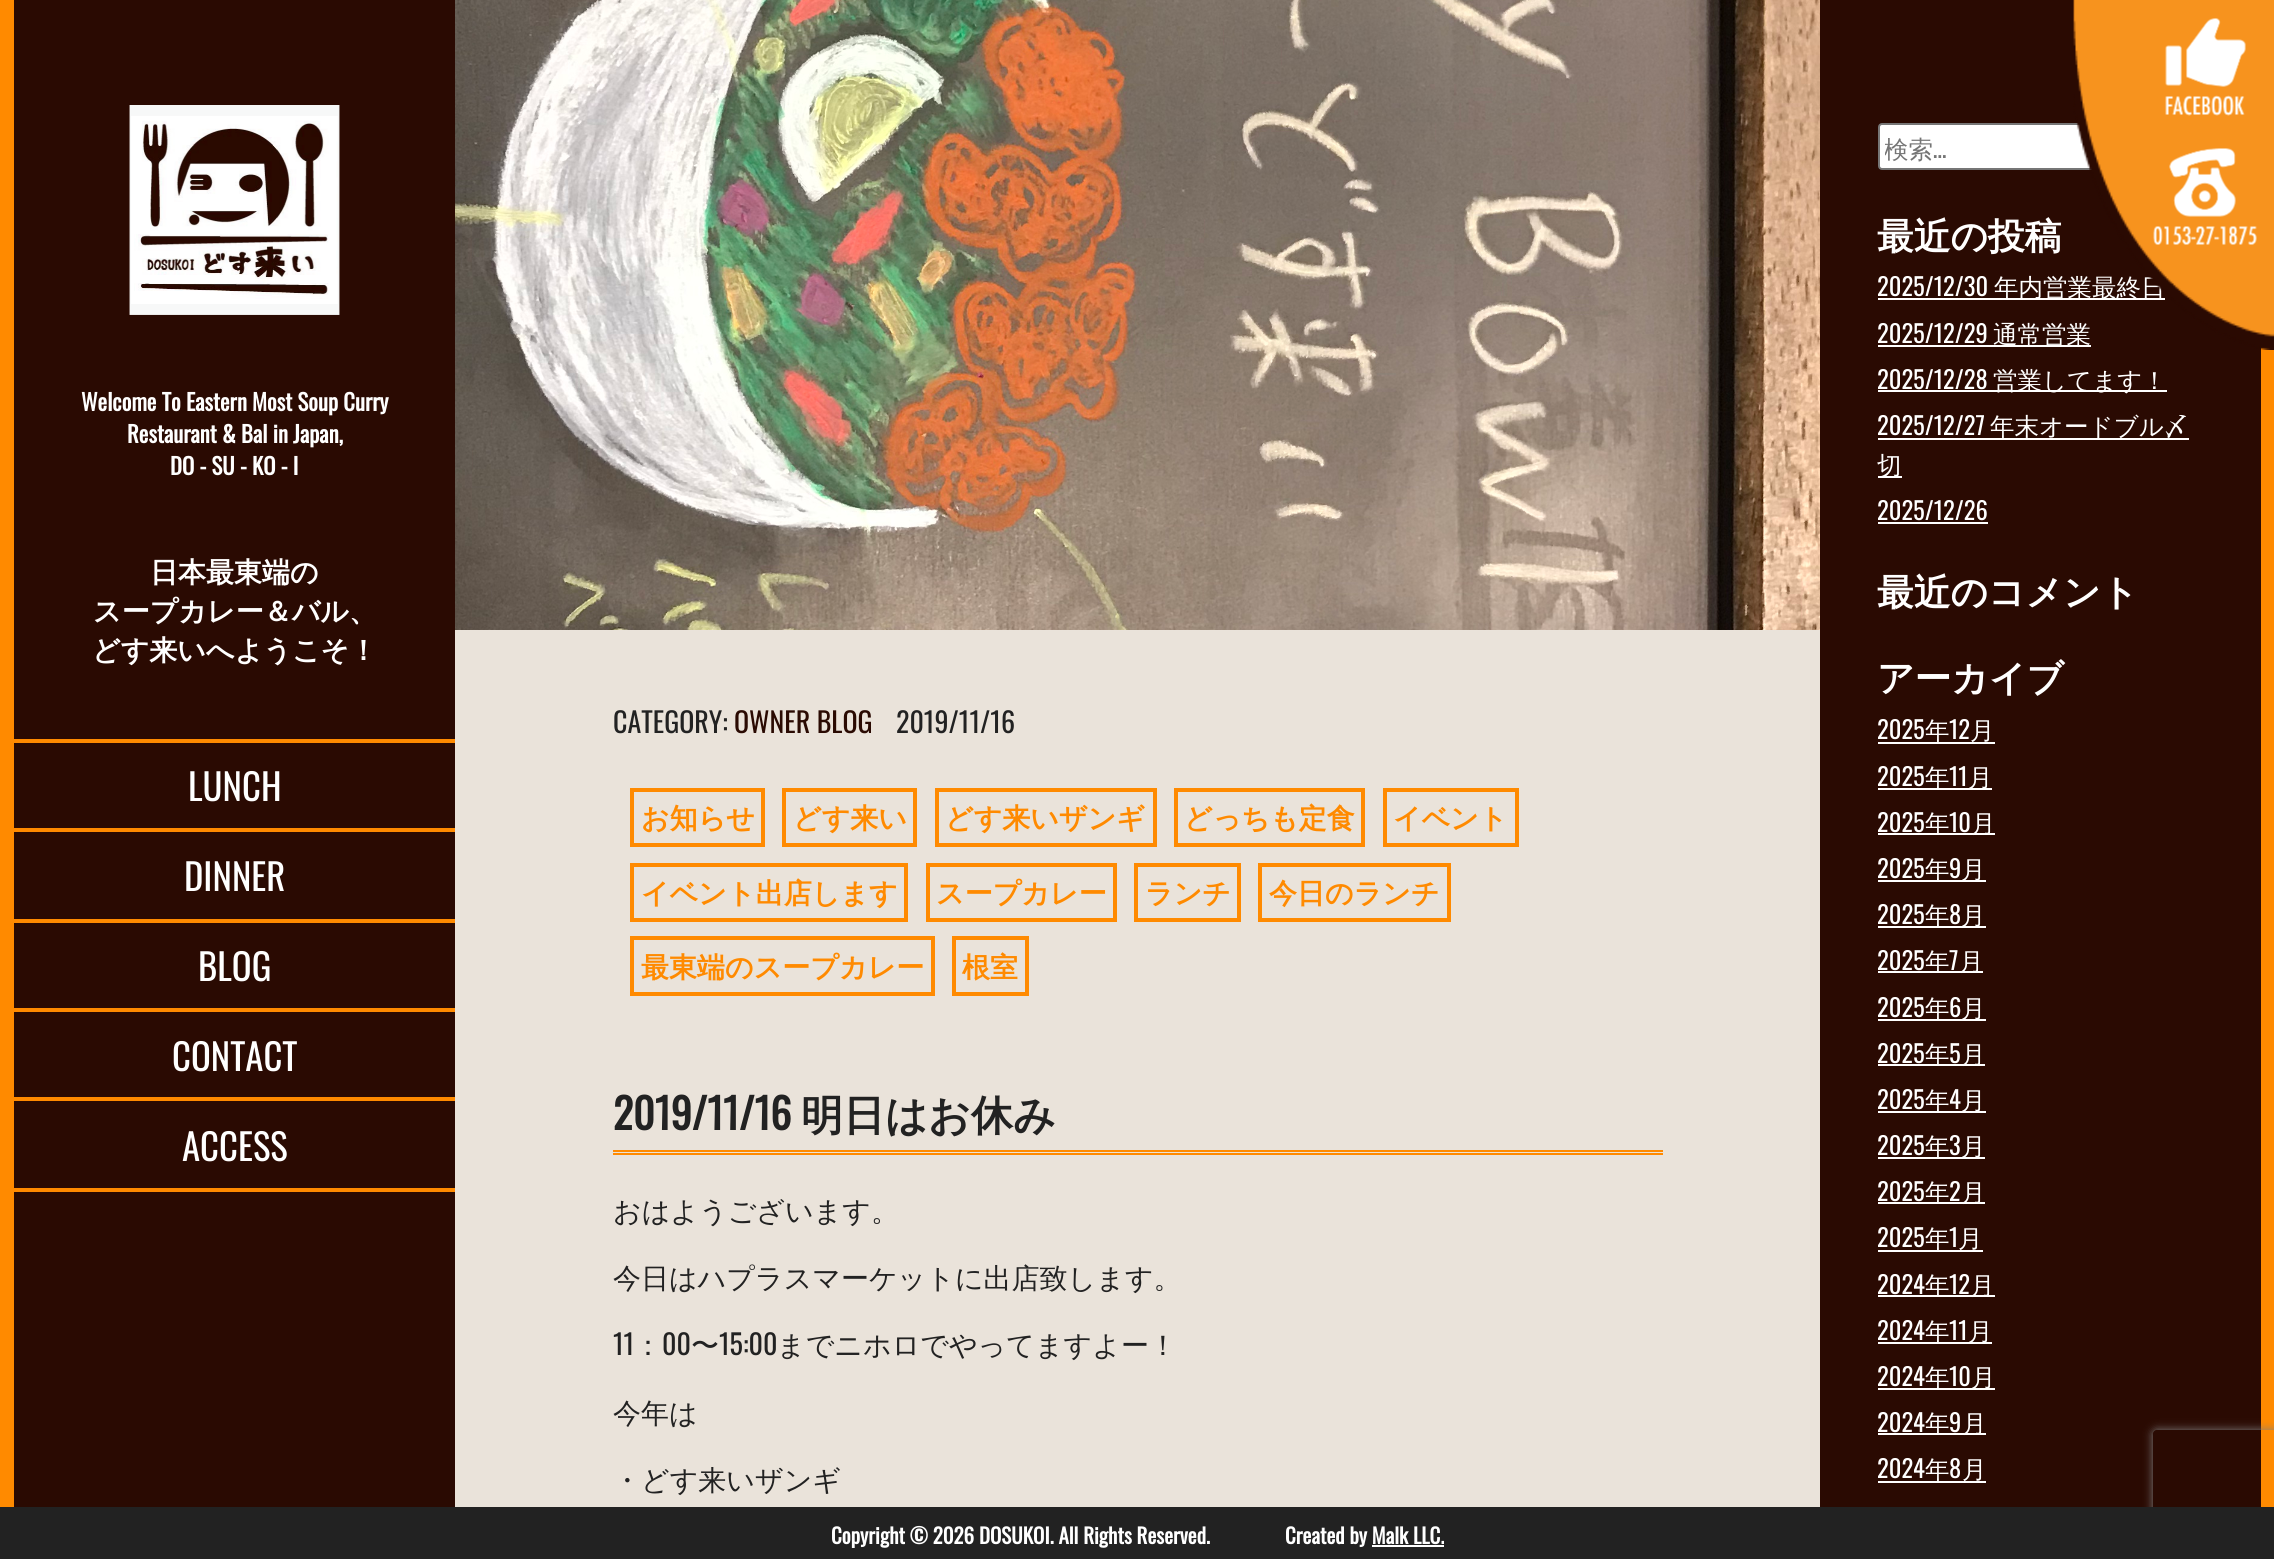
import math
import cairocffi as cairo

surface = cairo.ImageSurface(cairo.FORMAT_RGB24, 2274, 1559)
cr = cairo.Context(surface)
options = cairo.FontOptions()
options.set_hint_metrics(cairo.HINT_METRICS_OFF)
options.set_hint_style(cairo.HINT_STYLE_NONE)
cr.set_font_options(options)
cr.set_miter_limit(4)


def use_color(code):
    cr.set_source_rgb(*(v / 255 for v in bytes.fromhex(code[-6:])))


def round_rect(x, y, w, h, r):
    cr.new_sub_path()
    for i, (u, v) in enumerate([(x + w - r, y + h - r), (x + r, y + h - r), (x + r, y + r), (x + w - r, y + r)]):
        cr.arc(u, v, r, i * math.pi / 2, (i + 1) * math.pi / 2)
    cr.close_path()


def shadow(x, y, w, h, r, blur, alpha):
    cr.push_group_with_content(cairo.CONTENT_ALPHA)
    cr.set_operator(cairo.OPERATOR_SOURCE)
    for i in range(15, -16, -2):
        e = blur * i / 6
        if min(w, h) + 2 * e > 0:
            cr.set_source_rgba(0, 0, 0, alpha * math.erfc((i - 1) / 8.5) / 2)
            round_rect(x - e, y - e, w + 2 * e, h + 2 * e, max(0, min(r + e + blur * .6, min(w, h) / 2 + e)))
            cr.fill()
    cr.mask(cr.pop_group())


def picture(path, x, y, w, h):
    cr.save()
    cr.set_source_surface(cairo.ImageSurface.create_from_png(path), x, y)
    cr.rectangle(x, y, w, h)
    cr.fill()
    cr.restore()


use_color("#2a0a02")
cr.paint()
use_color("#ff8a00")
cr.rectangle(2261, 347, 13, 1160)
cr.fill()
use_color("#ffffff")
round_rect(1879, 124, 241, 45, 3)
cr.fill_preserve()
use_color("#767676")
cr.stroke()
use_color("#ffffff")
cr.rectangle(1878, 298, 287, 2)
cr.fill()
cr.select_font_face("WenQuanYi Zen Hei Medium")
cr.set_font_size(24.5)
cr.move_to(1994, 296)
cr.show_text("年内営業最終日")
cr.rectangle(1878, 345, 213, 2)
cr.fill()
cr.move_to(1993, 343)
cr.show_text("通常営業")
picture("img1.png", 2073, 0, 201, 350)
picture("img2.png", 2165, 18, 81, 98)
picture("img3.png", 2153, 148, 104, 97)
use_color("#ff8a00")
cr.rectangle(0, 0, 14, 1507)
cr.fill()
picture("img4.png", 129, 105, 211, 210)
cr.select_font_face("Oswald", cairo.FONT_SLANT_NORMAL, cairo.FONT_WEIGHT_BOLD)
cr.set_font_size(22.75)
use_color("#ffffff")
cr.move_to(81, 411)
cr.show_text("Welcome To Eastern Most Soup Curry")
cr.move_to(127, 443)
cr.show_text("Restaurant & Bal in Japan,")
cr.move_to(170, 475)
cr.show_text("DO - SU - KO - I")
cr.select_font_face("WenQuanYi Zen Hei", cairo.FONT_SLANT_NORMAL, cairo.FONT_WEIGHT_BOLD)
cr.set_font_size(28)
cr.move_to(150, 582)
cr.show_text("日本最東端の")
cr.move_to(93, 621)
cr.show_text("スープカレー＆バル、")
cr.move_to(92, 660)
cr.show_text("どす来いへようこそ！")
use_color("#ff8a00")
cr.rectangle(14, 739, 441, 4)
cr.fill()
cr.rectangle(14, 828, 441, 4)
cr.fill()
cr.select_font_face("Oswald")
cr.set_font_size(36.75)
use_color("#ffffff")
cr.move_to(188, 801)
cr.show_text("LUNCH")
use_color("#ff8a00")
cr.rectangle(14, 919, 441, 4)
cr.fill()
use_color("#ffffff")
cr.move_to(184, 891)
cr.show_text("DINNER")
use_color("#ff8a00")
cr.rectangle(14, 1008, 441, 4)
cr.fill()
use_color("#ffffff")
cr.move_to(198, 981)
cr.show_text("BLOG")
use_color("#ff8a00")
cr.rectangle(14, 1097, 441, 4)
cr.fill()
use_color("#ffffff")
cr.move_to(172, 1071)
cr.show_text("CONTACT")
use_color("#ff8a00")
cr.rectangle(14, 1188, 441, 4)
cr.fill()
use_color("#ffffff")
cr.move_to(182, 1161)
cr.show_text("ACCESS")
use_color("#eae3da")
cr.rectangle(455, 630, 1365, 877)
cr.fill()
picture("img5.png", 455, 0, 1365, 630)
cr.set_font_size(28)
use_color("#222222")
cr.move_to(613, 733)
cr.show_text("CATEGORY:")
use_color("#2a0a02")
cr.move_to(734, 733)
cr.show_text("OWNER BLOG")
use_color("#222222")
cr.move_to(896, 733)
cr.show_text("2019/11/16")
cr.rectangle(632, 790, 131, 55)
use_color("#ff8a00")
cr.set_line_width(4)
cr.stroke()
cr.select_font_face("WenQuanYi Zen Hei", cairo.FONT_SLANT_NORMAL, cairo.FONT_WEIGHT_BOLD)
cr.move_to(641, 828)
cr.show_text("お知らせ")
cr.rectangle(784, 790, 131, 55)
cr.stroke()
cr.move_to(793, 828)
cr.show_text("どす来い")
cr.rectangle(937, 790, 218, 55)
cr.stroke()
cr.move_to(945, 828)
cr.show_text("どす来いザンギ")
cr.rectangle(1176, 790, 187, 55)
cr.stroke()
cr.move_to(1184, 828)
cr.show_text("どっちも定食")
cr.rectangle(1385, 790, 132, 55)
cr.stroke()
cr.move_to(1393, 828)
cr.show_text("イベント")
cr.rectangle(632, 865, 274, 55)
cr.stroke()
cr.move_to(641, 903)
cr.show_text("イベント出店します")
cr.rectangle(928, 865, 187, 55)
cr.stroke()
cr.move_to(936, 903)
cr.show_text("スープカレー")
cr.rectangle(1136, 865, 103, 55)
cr.stroke()
cr.move_to(1145, 903)
cr.show_text("ランチ")
cr.rectangle(1260, 865, 189, 55)
cr.stroke()
cr.move_to(1269, 903)
cr.show_text("今日のランチ")
cr.rectangle(632, 938, 301, 56)
cr.stroke()
cr.move_to(641, 977)
cr.show_text("最東端のスープカレー")
cr.rectangle(954, 938, 73, 56)
cr.stroke()
cr.move_to(962, 977)
cr.show_text("根室")
cr.rectangle(613, 1150, 1050, 2)
cr.fill()
cr.rectangle(613, 1153, 1050, 2)
cr.fill()
cr.select_font_face("Oswald", cairo.FONT_SLANT_NORMAL, cairo.FONT_WEIGHT_BOLD)
cr.set_font_size(42)
use_color("#222222")
cr.move_to(613, 1130)
cr.show_text("2019/11/16")
cr.select_font_face("WenQuanYi Zen Hei", cairo.FONT_SLANT_NORMAL, cairo.FONT_WEIGHT_BOLD)
cr.move_to(801, 1130)
cr.show_text("明日はお休み")
cr.select_font_face("WenQuanYi Zen Hei Medium")
cr.set_font_size(28)
cr.move_to(613, 1221)
cr.show_text("おはようございます。")
cr.move_to(613, 1288)
cr.show_text("今日はハプラスマーケットに出店致します。")
cr.select_font_face("Oswald")
cr.move_to(613, 1355)
cr.show_text("11")
cr.select_font_face("WenQuanYi Zen Hei Medium")
cr.move_to(634, 1355)
cr.show_text("：")
cr.select_font_face("Oswald")
cr.move_to(662, 1355)
cr.show_text("00")
cr.select_font_face("WenQuanYi Zen Hei Medium")
cr.move_to(691, 1355)
cr.show_text("〜")
cr.select_font_face("Oswald")
cr.move_to(719, 1355)
cr.show_text("15:00")
cr.select_font_face("WenQuanYi Zen Hei Medium")
cr.move_to(777, 1355)
cr.show_text("までニホロでやってますよー！")
cr.move_to(613, 1423)
cr.show_text("今年は")
cr.move_to(613, 1490)
cr.show_text("・どす来いザンギ")
cr.save()
cr.rectangle(1885, 128, 222, 38)
cr.clip()
cr.set_font_size(24.5)
use_color("#757575")
cr.move_to(1884, 158)
cr.show_text("検索")
cr.restore()
cr.select_font_face("Oswald")
cr.set_font_size(24.5)
use_color("#757575")
cr.move_to(1933, 158)
cr.show_text("…")
cr.select_font_face("WenQuanYi Zen Hei", cairo.FONT_SLANT_NORMAL, cairo.FONT_WEIGHT_BOLD)
cr.set_font_size(36.75)
use_color("#ffffff")
cr.move_to(1877, 249)
cr.show_text("最近の投稿")
cr.select_font_face("Oswald")
cr.set_font_size(24.5)
cr.move_to(1877, 296)
cr.show_text("2025/12/30")
cr.move_to(1877, 343)
cr.show_text("2025/12/29")
cr.move_to(1877, 389)
cr.show_text("2025/12/28")
cr.rectangle(1878, 390, 289, 2)
cr.fill()
cr.select_font_face("WenQuanYi Zen Hei Medium")
cr.move_to(1993, 389)
cr.show_text("営業してます！")
cr.select_font_face("Oswald")
cr.move_to(1877, 435)
cr.show_text("2025/12/27")
cr.rectangle(1878, 438, 311, 2)
cr.fill()
cr.select_font_face("WenQuanYi Zen Hei Medium")
cr.move_to(1990, 435)
cr.show_text("年末オードブル〆")
cr.rectangle(1878, 476, 24, 2)
cr.fill()
cr.move_to(1877, 474)
cr.show_text("切")
cr.select_font_face("Oswald")
cr.move_to(1877, 520)
cr.show_text("2025/12/26")
cr.rectangle(1878, 522, 110, 2)
cr.fill()
cr.select_font_face("WenQuanYi Zen Hei", cairo.FONT_SLANT_NORMAL, cairo.FONT_WEIGHT_BOLD)
cr.set_font_size(36.75)
cr.move_to(1877, 605)
cr.show_text("最近のコメント")
cr.move_to(1877, 691)
cr.show_text("アーカイブ")
cr.select_font_face("Oswald")
cr.set_font_size(24.5)
cr.move_to(1877, 739)
cr.show_text("2025")
cr.select_font_face("WenQuanYi Zen Hei Medium")
cr.move_to(1925, 739)
cr.show_text("年")
cr.select_font_face("Oswald")
cr.move_to(1949, 739)
cr.show_text("12")
cr.rectangle(1878, 742, 117, 2)
cr.fill()
cr.select_font_face("WenQuanYi Zen Hei Medium")
cr.move_to(1970, 739)
cr.show_text("月")
cr.select_font_face("Oswald")
cr.move_to(1877, 786)
cr.show_text("2025")
cr.rectangle(1878, 788, 114, 2)
cr.fill()
cr.select_font_face("WenQuanYi Zen Hei Medium")
cr.move_to(1925, 786)
cr.show_text("年")
cr.select_font_face("Oswald")
cr.move_to(1949, 786)
cr.show_text("11")
cr.select_font_face("WenQuanYi Zen Hei Medium")
cr.move_to(1968, 786)
cr.show_text("月")
cr.select_font_face("Oswald")
cr.move_to(1877, 832)
cr.show_text("2025")
cr.rectangle(1878, 833, 117, 2)
cr.fill()
cr.select_font_face("WenQuanYi Zen Hei Medium")
cr.move_to(1925, 832)
cr.show_text("年")
cr.select_font_face("Oswald")
cr.move_to(1949, 832)
cr.show_text("10")
cr.select_font_face("WenQuanYi Zen Hei Medium")
cr.move_to(1971, 832)
cr.show_text("月")
cr.select_font_face("Oswald")
cr.move_to(1877, 878)
cr.show_text("2025")
cr.rectangle(1878, 880, 108, 2)
cr.fill()
cr.select_font_face("WenQuanYi Zen Hei Medium")
cr.move_to(1925, 878)
cr.show_text("年")
cr.select_font_face("Oswald")
cr.move_to(1949, 878)
cr.show_text("9")
cr.select_font_face("WenQuanYi Zen Hei Medium")
cr.move_to(1961, 878)
cr.show_text("月")
cr.select_font_face("Oswald")
cr.move_to(1877, 924)
cr.show_text("2025")
cr.rectangle(1878, 926, 108, 2)
cr.fill()
cr.select_font_face("WenQuanYi Zen Hei Medium")
cr.move_to(1925, 924)
cr.show_text("年")
cr.select_font_face("Oswald")
cr.move_to(1949, 924)
cr.show_text("8")
cr.select_font_face("WenQuanYi Zen Hei Medium")
cr.move_to(1961, 924)
cr.show_text("月")
cr.select_font_face("Oswald")
cr.move_to(1877, 970)
cr.show_text("2025")
cr.rectangle(1878, 971, 105, 2)
cr.fill()
cr.select_font_face("WenQuanYi Zen Hei Medium")
cr.move_to(1925, 970)
cr.show_text("年")
cr.select_font_face("Oswald")
cr.move_to(1949, 970)
cr.show_text("7")
cr.select_font_face("WenQuanYi Zen Hei Medium")
cr.move_to(1959, 970)
cr.show_text("月")
cr.select_font_face("Oswald")
cr.move_to(1877, 1017)
cr.show_text("2025")
cr.rectangle(1878, 1019, 108, 2)
cr.fill()
cr.select_font_face("WenQuanYi Zen Hei Medium")
cr.move_to(1925, 1017)
cr.show_text("年")
cr.select_font_face("Oswald")
cr.move_to(1949, 1017)
cr.show_text("6")
cr.select_font_face("WenQuanYi Zen Hei Medium")
cr.move_to(1961, 1017)
cr.show_text("月")
cr.select_font_face("Oswald")
cr.move_to(1877, 1063)
cr.show_text("2025")
cr.rectangle(1878, 1064, 107, 2)
cr.fill()
cr.select_font_face("WenQuanYi Zen Hei Medium")
cr.move_to(1925, 1063)
cr.show_text("年")
cr.select_font_face("Oswald")
cr.move_to(1949, 1063)
cr.show_text("5")
cr.select_font_face("WenQuanYi Zen Hei Medium")
cr.move_to(1961, 1063)
cr.show_text("月")
cr.select_font_face("Oswald")
cr.move_to(1877, 1109)
cr.show_text("2025")
cr.rectangle(1878, 1111, 108, 2)
cr.fill()
cr.select_font_face("WenQuanYi Zen Hei Medium")
cr.move_to(1925, 1109)
cr.show_text("年")
cr.select_font_face("Oswald")
cr.move_to(1949, 1109)
cr.show_text("4")
cr.select_font_face("WenQuanYi Zen Hei Medium")
cr.move_to(1961, 1109)
cr.show_text("月")
cr.select_font_face("Oswald")
cr.move_to(1877, 1155)
cr.show_text("2025")
cr.rectangle(1878, 1157, 107, 2)
cr.fill()
cr.select_font_face("WenQuanYi Zen Hei Medium")
cr.move_to(1925, 1155)
cr.show_text("年")
cr.select_font_face("Oswald")
cr.move_to(1949, 1155)
cr.show_text("3")
cr.select_font_face("WenQuanYi Zen Hei Medium")
cr.move_to(1961, 1155)
cr.show_text("月")
cr.select_font_face("Oswald")
cr.move_to(1877, 1201)
cr.show_text("2025")
cr.rectangle(1878, 1202, 107, 2)
cr.fill()
cr.select_font_face("WenQuanYi Zen Hei Medium")
cr.move_to(1925, 1201)
cr.show_text("年")
cr.select_font_face("Oswald")
cr.move_to(1949, 1201)
cr.show_text("2")
cr.select_font_face("WenQuanYi Zen Hei Medium")
cr.move_to(1961, 1201)
cr.show_text("月")
cr.select_font_face("Oswald")
cr.move_to(1877, 1247)
cr.show_text("2025")
cr.select_font_face("WenQuanYi Zen Hei Medium")
cr.move_to(1925, 1247)
cr.show_text("年")
cr.select_font_face("Oswald")
cr.move_to(1949, 1247)
cr.show_text("1")
cr.rectangle(1878, 1250, 105, 2)
cr.fill()
cr.select_font_face("WenQuanYi Zen Hei Medium")
cr.move_to(1958, 1247)
cr.show_text("月")
cr.select_font_face("Oswald")
cr.move_to(1877, 1294)
cr.show_text("2024")
cr.rectangle(1878, 1295, 117, 2)
cr.fill()
cr.select_font_face("WenQuanYi Zen Hei Medium")
cr.move_to(1925, 1294)
cr.show_text("年")
cr.select_font_face("Oswald")
cr.move_to(1949, 1294)
cr.show_text("12")
cr.select_font_face("WenQuanYi Zen Hei Medium")
cr.move_to(1970, 1294)
cr.show_text("月")
cr.select_font_face("Oswald")
cr.move_to(1877, 1340)
cr.show_text("2024")
cr.rectangle(1878, 1342, 114, 2)
cr.fill()
cr.select_font_face("WenQuanYi Zen Hei Medium")
cr.move_to(1925, 1340)
cr.show_text("年")
cr.select_font_face("Oswald")
cr.move_to(1949, 1340)
cr.show_text("11")
cr.select_font_face("WenQuanYi Zen Hei Medium")
cr.move_to(1968, 1340)
cr.show_text("月")
cr.select_font_face("Oswald")
cr.move_to(1877, 1386)
cr.show_text("2024")
cr.rectangle(1878, 1388, 117, 2)
cr.fill()
cr.select_font_face("WenQuanYi Zen Hei Medium")
cr.move_to(1925, 1386)
cr.show_text("年")
cr.select_font_face("Oswald")
cr.move_to(1949, 1386)
cr.show_text("10")
cr.select_font_face("WenQuanYi Zen Hei Medium")
cr.move_to(1971, 1386)
cr.show_text("月")
cr.select_font_face("Oswald")
cr.move_to(1877, 1432)
cr.show_text("2024")
cr.rectangle(1878, 1433, 108, 2)
cr.fill()
cr.select_font_face("WenQuanYi Zen Hei Medium")
cr.move_to(1925, 1432)
cr.show_text("年")
cr.select_font_face("Oswald")
cr.move_to(1949, 1432)
cr.show_text("9")
cr.select_font_face("WenQuanYi Zen Hei Medium")
cr.move_to(1962, 1432)
cr.show_text("月")
cr.select_font_face("Oswald")
cr.move_to(1877, 1478)
cr.show_text("2024")
cr.select_font_face("WenQuanYi Zen Hei Medium")
cr.move_to(1925, 1478)
cr.show_text("年")
cr.select_font_face("Oswald")
cr.move_to(1949, 1478)
cr.show_text("8")
cr.rectangle(1878, 1481, 108, 2)
cr.fill()
cr.select_font_face("WenQuanYi Zen Hei Medium")
cr.move_to(1962, 1478)
cr.show_text("月")
cr.save()
cr.set_fill_rule(cairo.FILL_RULE_EVEN_ODD)
cr.new_path()
cr.move_to(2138, 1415)
cr.line_to(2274, 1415)
cr.line_to(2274, 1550)
cr.line_to(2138, 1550)
cr.close_path()
cr.move_to(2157, 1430)
cr.line_to(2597, 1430)
cr.curve_to(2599, 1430, 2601, 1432, 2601, 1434)
cr.line_to(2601, 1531)
cr.curve_to(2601, 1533, 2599, 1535, 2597, 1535)
cr.line_to(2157, 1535)
cr.curve_to(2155, 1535, 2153, 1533, 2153, 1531)
cr.line_to(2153, 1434)
cr.curve_to(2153, 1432, 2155, 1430, 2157, 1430)
cr.close_path()
cr.clip()
use_color("#808080")
shadow(2153, 1430, 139, 105, 4, 4.5, 1)
cr.restore()
use_color("#222222")
cr.rectangle(0, 1507, 2274, 52)
cr.fill()
cr.select_font_face("Oswald", cairo.FONT_SLANT_NORMAL, cairo.FONT_WEIGHT_BOLD)
cr.set_font_size(21)
use_color("#ffffff")
cr.move_to(831, 1544)
cr.show_text("Copyright © 2026 DOSUKOI. All Rights Reserved.")
cr.move_to(1285, 1544)
cr.show_text("Created by Malk LLC.")
cr.rectangle(1372, 1545, 72, 2)
cr.fill()
surface.write_to_png("result.png")
